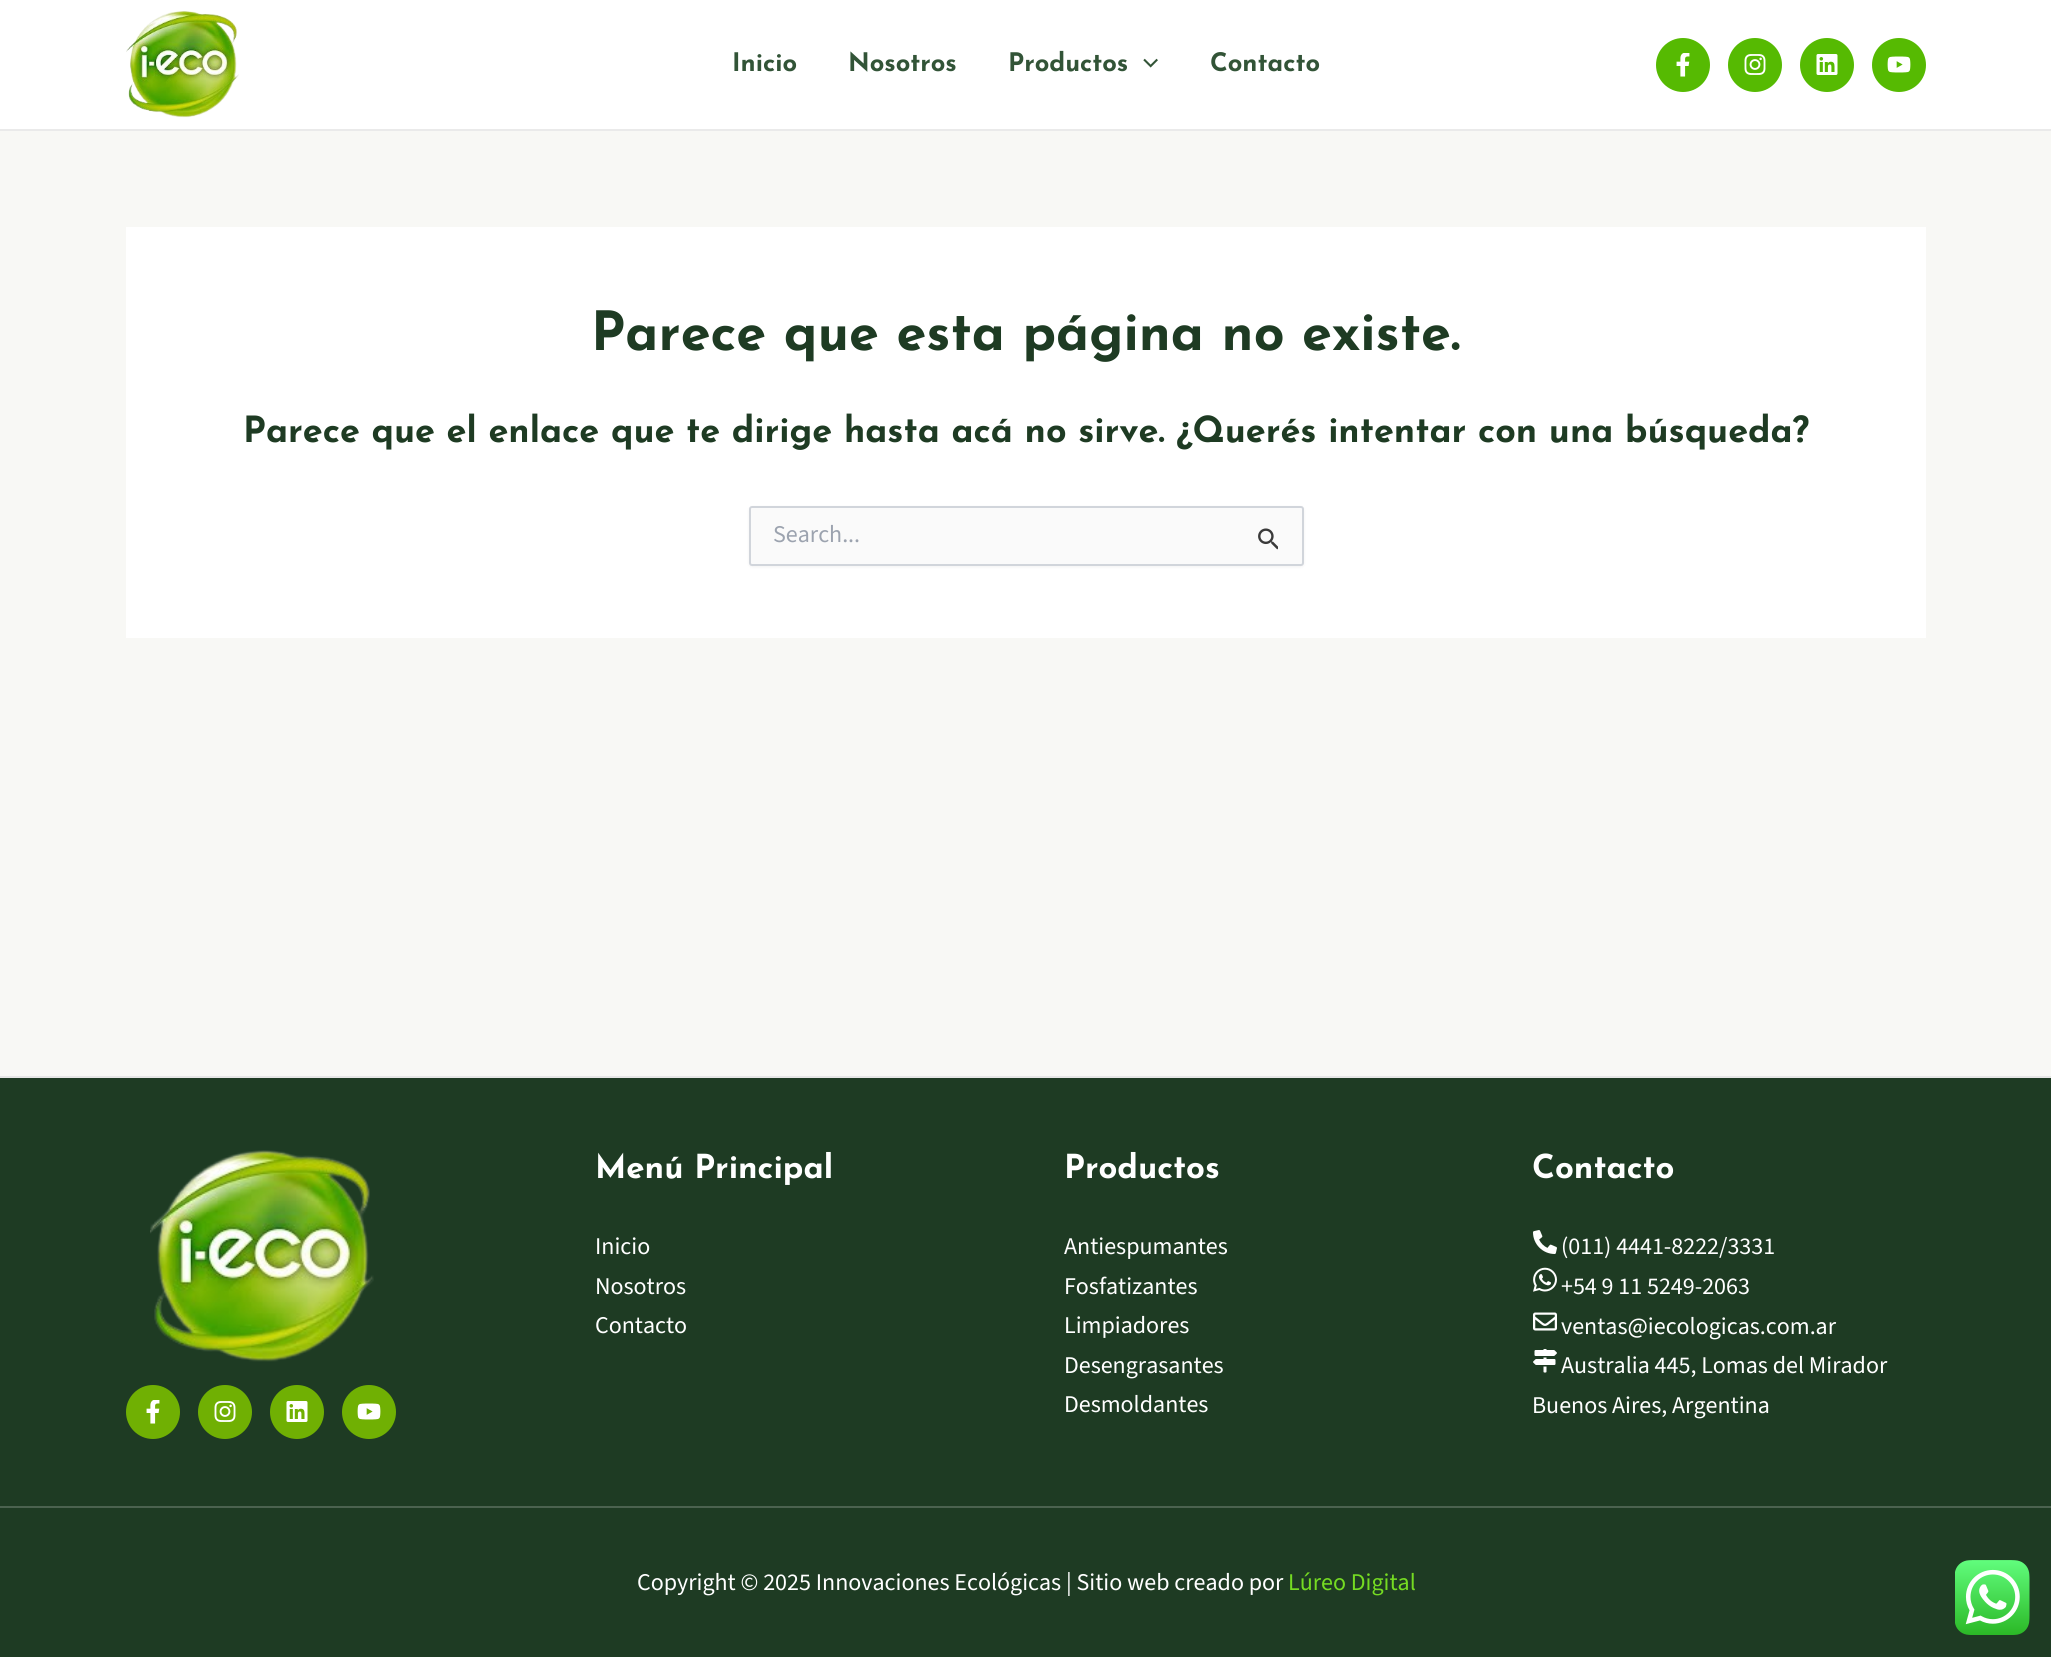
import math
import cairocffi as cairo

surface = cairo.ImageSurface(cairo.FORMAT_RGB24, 2051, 1657)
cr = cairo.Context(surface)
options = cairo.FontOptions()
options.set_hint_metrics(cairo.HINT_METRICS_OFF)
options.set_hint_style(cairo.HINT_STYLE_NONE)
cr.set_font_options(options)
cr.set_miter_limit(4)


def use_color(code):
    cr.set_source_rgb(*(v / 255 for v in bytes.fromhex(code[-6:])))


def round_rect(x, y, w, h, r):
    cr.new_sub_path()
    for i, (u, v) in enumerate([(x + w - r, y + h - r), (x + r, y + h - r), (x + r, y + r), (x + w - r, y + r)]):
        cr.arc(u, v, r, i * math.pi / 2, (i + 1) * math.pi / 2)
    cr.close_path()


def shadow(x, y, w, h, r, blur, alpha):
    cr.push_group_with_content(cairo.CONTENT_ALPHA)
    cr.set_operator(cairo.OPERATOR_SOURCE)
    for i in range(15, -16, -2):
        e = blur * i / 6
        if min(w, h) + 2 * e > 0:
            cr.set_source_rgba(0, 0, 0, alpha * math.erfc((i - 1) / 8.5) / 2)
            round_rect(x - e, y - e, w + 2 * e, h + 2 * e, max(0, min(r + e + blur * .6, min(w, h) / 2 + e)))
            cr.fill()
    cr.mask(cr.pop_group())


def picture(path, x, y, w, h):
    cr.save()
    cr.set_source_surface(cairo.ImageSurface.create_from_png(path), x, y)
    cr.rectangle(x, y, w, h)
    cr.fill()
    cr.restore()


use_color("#f8f8f5")
cr.paint()
use_color("#ffffff")
cr.rectangle(0, 0, 2051, 129)
cr.fill()
use_color("#eaeaea")
cr.rectangle(0, 129, 2051, 2)
cr.fill()
picture("img1.png", 126, 11, 113, 107)
cr.select_font_face("Josefin Sans Thin")
cr.set_font_size(25.5)
use_color("#325437")
cr.move_to(732, 71)
cr.show_text("Inicio")
cr.move_to(848, 71)
cr.show_text("Nosotros")
cr.move_to(1008, 71)
cr.show_text("Productos")
picture("img2.png", 1143, 58, 15, 10)
cr.move_to(1210, 71)
cr.show_text("Contacto")
use_color("#56ba02")
cr.new_path()
cr.arc(1683, 65, 27, 0, 2 * math.pi)
cr.fill()
picture("img3.png", 1676, 53, 14, 24)
cr.arc(1755, 65, 27, 0, 2 * math.pi)
cr.fill()
picture("img4.png", 1744, 54, 22, 21)
cr.arc(1827, 65, 27, 0, 2 * math.pi)
cr.fill()
picture("img5.png", 1816, 54, 22, 21)
cr.arc(1899, 65, 27, 0, 2 * math.pi)
cr.fill()
picture("img6.png", 1887, 56, 24, 17)
use_color("#ffffff")
cr.rectangle(126, 227, 1800, 411)
cr.fill()
cr.set_font_size(54)
use_color("#1e3b23")
cr.move_to(591, 350)
cr.show_text("Parece que esta página no existe.")
cr.set_font_size(36)
cr.move_to(243, 442)
cr.show_text("Parece que el enlace que te dirige hasta acá no sirve. ¿Querés intentar con una búsqueda?")
use_color("#000000")
shadow(749, 507, 555, 60, 3, 1.5, 0.05)
use_color("#fafafa")
round_rect(750, 507, 553, 58, 2)
cr.fill_preserve()
use_color("#d1d5db")
cr.stroke()
cr.select_font_face("Source Sans 3 ExtraLight")
cr.set_font_size(24)
use_color("#9ca3af")
cr.move_to(773, 542)
cr.show_text("Search...")
picture("img7.png", 1258, 528, 20, 22)
use_color("#1e3b23")
cr.rectangle(0, 1078, 2051, 428)
cr.fill()
use_color("#e6e6e6")
cr.rectangle(0, 1076, 2051, 2)
cr.fill()
picture("img8.png", 150, 1150, 224, 212)
use_color("#70b003")
cr.arc(153, 1412, 27, 0, 2 * math.pi)
cr.fill()
picture("img9.png", 146, 1400, 14, 24)
cr.arc(225, 1412, 27, 0, 2 * math.pi)
cr.fill()
picture("img10.png", 214, 1401, 22, 21)
cr.arc(297, 1412, 27, 0, 2 * math.pi)
cr.fill()
picture("img11.png", 286, 1401, 22, 21)
cr.arc(369, 1412, 27, 0, 2 * math.pi)
cr.fill()
picture("img12.png", 357, 1403, 24, 17)
cr.select_font_face("Josefin Sans Thin")
cr.set_font_size(33)
use_color("#ffffff")
cr.move_to(595, 1178)
cr.show_text("Menú Principal")
cr.select_font_face("Source Sans 3 ExtraLight")
cr.set_font_size(24)
cr.move_to(595, 1254)
cr.show_text("Inicio")
cr.move_to(595, 1294)
cr.show_text("Nosotros")
cr.move_to(595, 1333)
cr.show_text("Contacto")
cr.select_font_face("Josefin Sans Thin")
cr.set_font_size(33)
cr.move_to(1064, 1178)
cr.show_text("Productos")
cr.select_font_face("Source Sans 3 ExtraLight")
cr.set_font_size(24)
cr.move_to(1064, 1254)
cr.show_text("Antiespumantes")
cr.move_to(1064, 1294)
cr.show_text("Fosfatizantes")
cr.move_to(1064, 1333)
cr.show_text("Limpiadores")
cr.move_to(1064, 1373)
cr.show_text("Desengrasantes")
cr.move_to(1064, 1412)
cr.show_text("Desmoldantes")
cr.select_font_face("Josefin Sans Thin")
cr.set_font_size(33)
cr.move_to(1532, 1178)
cr.show_text("Contacto")
picture("img13.png", 1533, 1230, 24, 24)
cr.select_font_face("Source Sans 3 ExtraLight")
cr.set_font_size(24)
cr.move_to(1561, 1254)
cr.show_text("(011) 4441-8222/3331")
picture("img14.png", 1533, 1267, 24, 25)
cr.move_to(1561, 1294)
cr.show_text("+54 9 11 5249-2063")
picture("img15.png", 1533, 1312, 24, 19)
cr.move_to(1561, 1334)
cr.show_text("ventas@iecologicas.com.ar")
picture("img16.png", 1533, 1349, 24, 24)
cr.move_to(1561, 1373)
cr.show_text("Australia 445, Lomas del Mirador")
cr.move_to(1532, 1413)
cr.show_text("Buenos Aires, Argentina")
use_color("#1e3b23")
cr.rectangle(0, 1508, 2051, 149)
cr.fill()
use_color("#4b624f")
cr.rectangle(0, 1506, 2051, 2)
cr.fill()
use_color("#ffffff")
cr.move_to(637, 1590)
cr.show_text("Copyright © 2025 Innovaciones Ecológicas | Sitio web creado por")
use_color("#75db22")
cr.move_to(1288, 1590)
cr.show_text("Lúreo Digital")
picture("img17.png", 1955, 1560, 75, 75)
surface.write_to_png("result.png")
